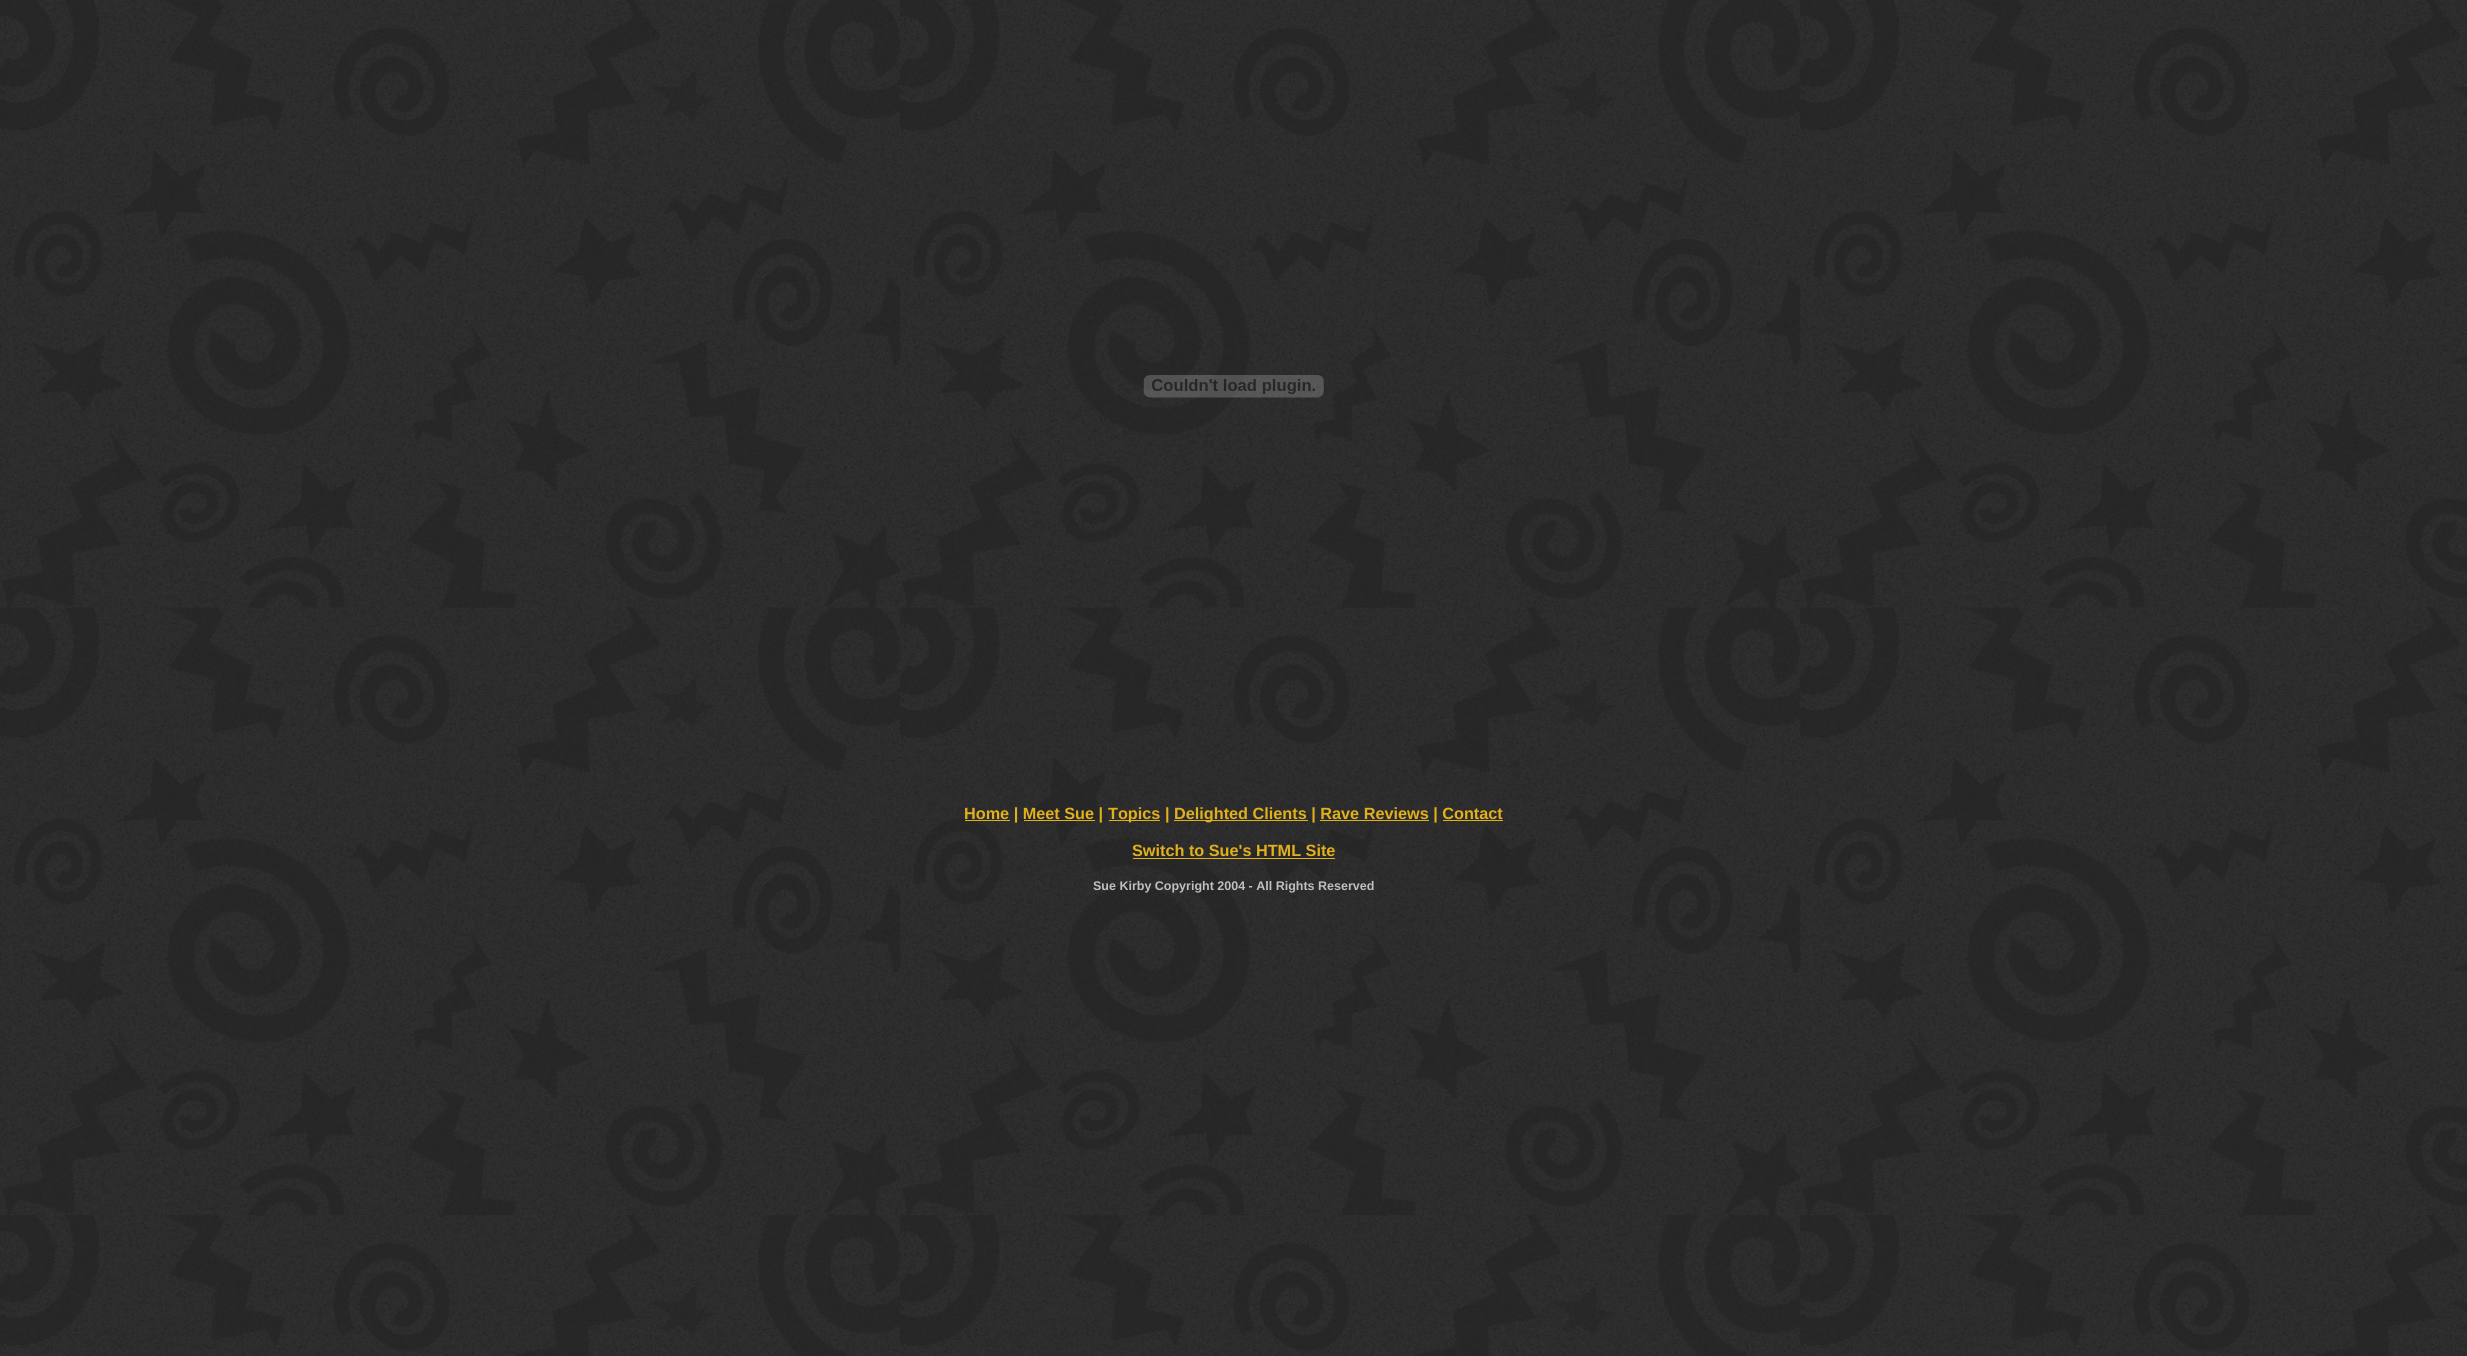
import math
import cairocffi as cairo

surface = cairo.ImageSurface(cairo.FORMAT_RGB24, 2467, 1356)
cr = cairo.Context(surface)
options = cairo.FontOptions()
options.set_hint_metrics(cairo.HINT_METRICS_OFF)
options.set_hint_style(cairo.HINT_STYLE_NONE)
cr.set_font_options(options)
cr.set_miter_limit(4)


def use_color(code):
    cr.set_source_rgb(*(v / 255 for v in bytes.fromhex(code[-6:])))


def picture(path, x, y, w, h):
    cr.save()
    cr.set_source_surface(cairo.ImageSurface.create_from_png(path), x, y)
    cr.rectangle(x, y, w, h)
    cr.fill()
    cr.restore()


use_color("#ffffff")
cr.paint()
picture("img1.png", 0, 0, 2467, 1356)
picture("img2.png", 1143, 375, 181, 23)
use_color("#e2b01b")
cr.rectangle(965, 820, 45, 1)
cr.fill()
cr.select_font_face("Liberation Sans", cairo.FONT_SLANT_NORMAL, cairo.FONT_WEIGHT_BOLD)
cr.set_font_size(16.25)
cr.move_to(964, 819)
cr.show_text("Home | Meet Sue |")
cr.rectangle(1024, 820, 71, 1)
cr.fill()
cr.rectangle(1109, 820, 51, 1)
cr.fill()
cr.move_to(1108, 819)
cr.show_text("Topics |")
cr.rectangle(1174, 820, 134, 1)
cr.fill()
cr.move_to(1174, 819)
cr.show_text("Delighted Clients | Rave Reviews | Contact")
cr.rectangle(1320, 820, 109, 1)
cr.fill()
cr.rectangle(1443, 820, 60, 1)
cr.fill()
cr.move_to(1132, 856)
cr.show_text("Switch to Sue's HTML Site")
cr.rectangle(1133, 858, 202, 1)
cr.fill()
cr.set_font_size(12.5)
use_color("#c0c0c0")
cr.move_to(1093, 890)
cr.show_text("Sue Kirby Copyright 2004 - All Rights Reserved")
surface.write_to_png("result.png")
